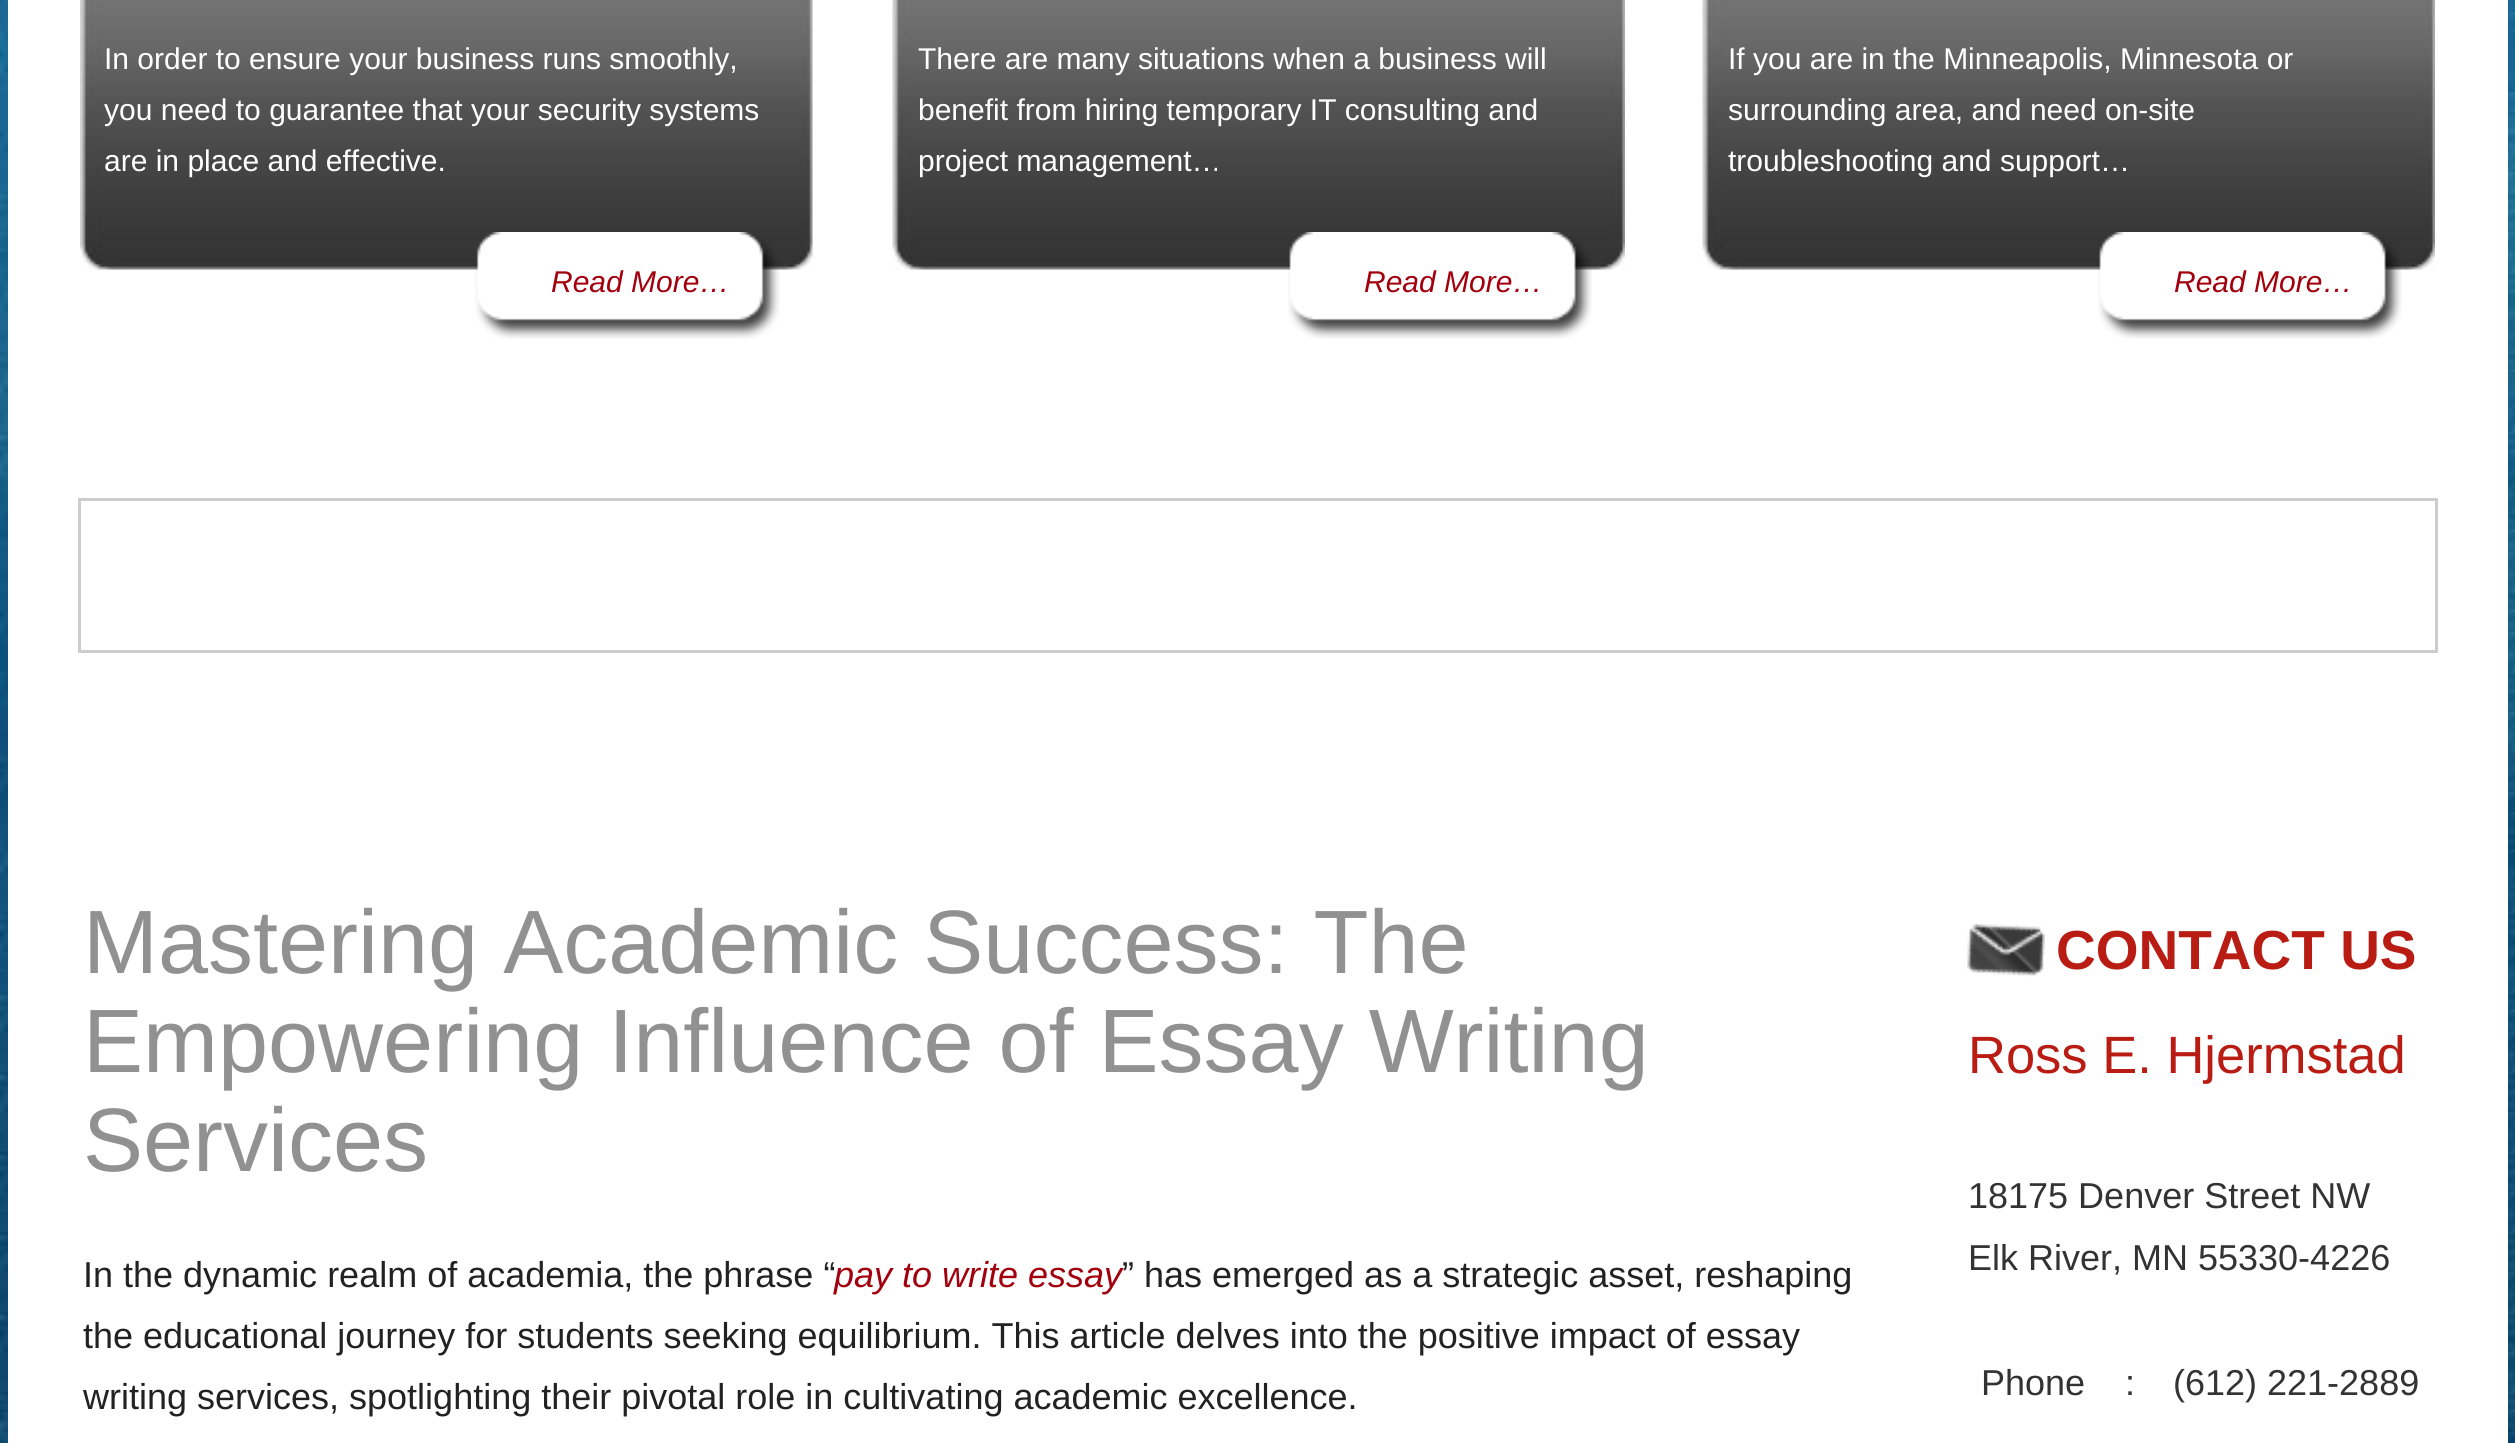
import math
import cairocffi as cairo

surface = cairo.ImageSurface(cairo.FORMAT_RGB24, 2515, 1443)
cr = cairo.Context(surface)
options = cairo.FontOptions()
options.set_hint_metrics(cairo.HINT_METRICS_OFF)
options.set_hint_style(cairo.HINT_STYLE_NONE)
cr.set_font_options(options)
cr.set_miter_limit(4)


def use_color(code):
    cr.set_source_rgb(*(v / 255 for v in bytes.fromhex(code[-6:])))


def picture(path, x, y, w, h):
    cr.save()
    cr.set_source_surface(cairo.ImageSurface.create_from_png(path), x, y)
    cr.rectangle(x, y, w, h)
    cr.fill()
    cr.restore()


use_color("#ffffff")
cr.paint()
picture("img1.png", 0, 0, 2515, 1443)
use_color("#ffffff")
cr.rectangle(8, 0, 2500, 850)
cr.fill()
picture("img2.png", 80, 0, 733, 270)
cr.select_font_face("Liberation Sans")
cr.set_font_size(30)
cr.move_to(104, 69)
cr.show_text("In order to ensure your business runs smoothly,")
cr.move_to(104, 120)
cr.show_text("you need to guarantee that your security systems")
cr.move_to(104, 171)
cr.show_text("are in place and effective.")
picture("img3.png", 475, 232, 305, 107)
cr.select_font_face("Liberation Sans", cairo.FONT_SLANT_ITALIC)
use_color("#a3000e")
cr.move_to(551, 292)
cr.show_text("Read More…")
picture("img4.png", 892, 0, 733, 270)
cr.select_font_face("Liberation Sans")
use_color("#ffffff")
cr.move_to(918, 69)
cr.show_text("There are many situations when a business will")
cr.move_to(918, 120)
cr.show_text("benefit from hiring temporary IT consulting and")
cr.move_to(918, 171)
cr.show_text("project management…")
picture("img5.png", 1288, 232, 304, 107)
cr.select_font_face("Liberation Sans", cairo.FONT_SLANT_ITALIC)
use_color("#a3000e")
cr.move_to(1364, 292)
cr.show_text("Read More…")
picture("img4.png", 1702, 0, 733, 270)
cr.select_font_face("Liberation Sans")
use_color("#ffffff")
cr.move_to(1728, 69)
cr.show_text("If you are in the Minneapolis, Minnesota or")
cr.move_to(1728, 120)
cr.show_text("surrounding area, and need on-site")
cr.move_to(1728, 171)
cr.show_text("troubleshooting and support…")
picture("img6.png", 2098, 232, 304, 107)
cr.select_font_face("Liberation Sans", cairo.FONT_SLANT_ITALIC)
use_color("#a3000e")
cr.move_to(2174, 292)
cr.show_text("Read More…")
cr.rectangle(79.5, 499.5, 2357, 152)
use_color("#cccccc")
cr.set_line_width(3)
cr.stroke()
use_color("#ffffff")
cr.rectangle(8, 850, 2500, 593)
cr.fill()
cr.select_font_face("Liberation Sans")
cr.set_font_size(90)
use_color("#919191")
cr.move_to(83, 973)
cr.show_text("Mastering Academic Success: The")
cr.move_to(83, 1072)
cr.show_text("Empowering Influence of Essay Writing")
cr.move_to(83, 1171)
cr.show_text("Services")
cr.set_font_size(36)
use_color("#222222")
cr.move_to(83, 1287)
cr.show_text("In the dynamic realm of academia, the phrase “")
cr.select_font_face("Liberation Sans", cairo.FONT_SLANT_ITALIC)
use_color("#a3000e")
cr.move_to(834, 1287)
cr.show_text("pay to write essay")
cr.select_font_face("Liberation Sans")
use_color("#222222")
cr.move_to(1122, 1287)
cr.show_text("” has emerged as a strategic asset, reshaping")
cr.move_to(83, 1348)
cr.show_text("the educational journey for students seeking equilibrium. This article delves into the positive impact of essay")
cr.move_to(83, 1409)
cr.show_text("writing services, spotlighting their pivotal role in cultivating academic excellence.")
picture("img7.png", 1967, 924, 78, 53)
cr.select_font_face("Liberation Sans", cairo.FONT_SLANT_NORMAL, cairo.FONT_WEIGHT_BOLD)
cr.set_font_size(55)
use_color("#b91c13")
cr.move_to(2056, 969)
cr.show_text("CONTACT US")
cr.select_font_face("Liberation Sans")
cr.set_font_size(52.5)
cr.move_to(1968, 1073)
cr.show_text("Ross E. Hjermstad")
cr.set_font_size(36)
use_color("#333333")
cr.move_to(1968, 1208)
cr.show_text("18175 Denver Street NW")
cr.move_to(1968, 1270)
cr.show_text("Elk River, MN 55330-4226")
cr.move_to(1981, 1395)
cr.show_text("Phone")
cr.move_to(2125, 1395)
cr.show_text(":")
cr.move_to(2173, 1395)
cr.show_text("(612) 221-2889")
surface.write_to_png("result.png")
